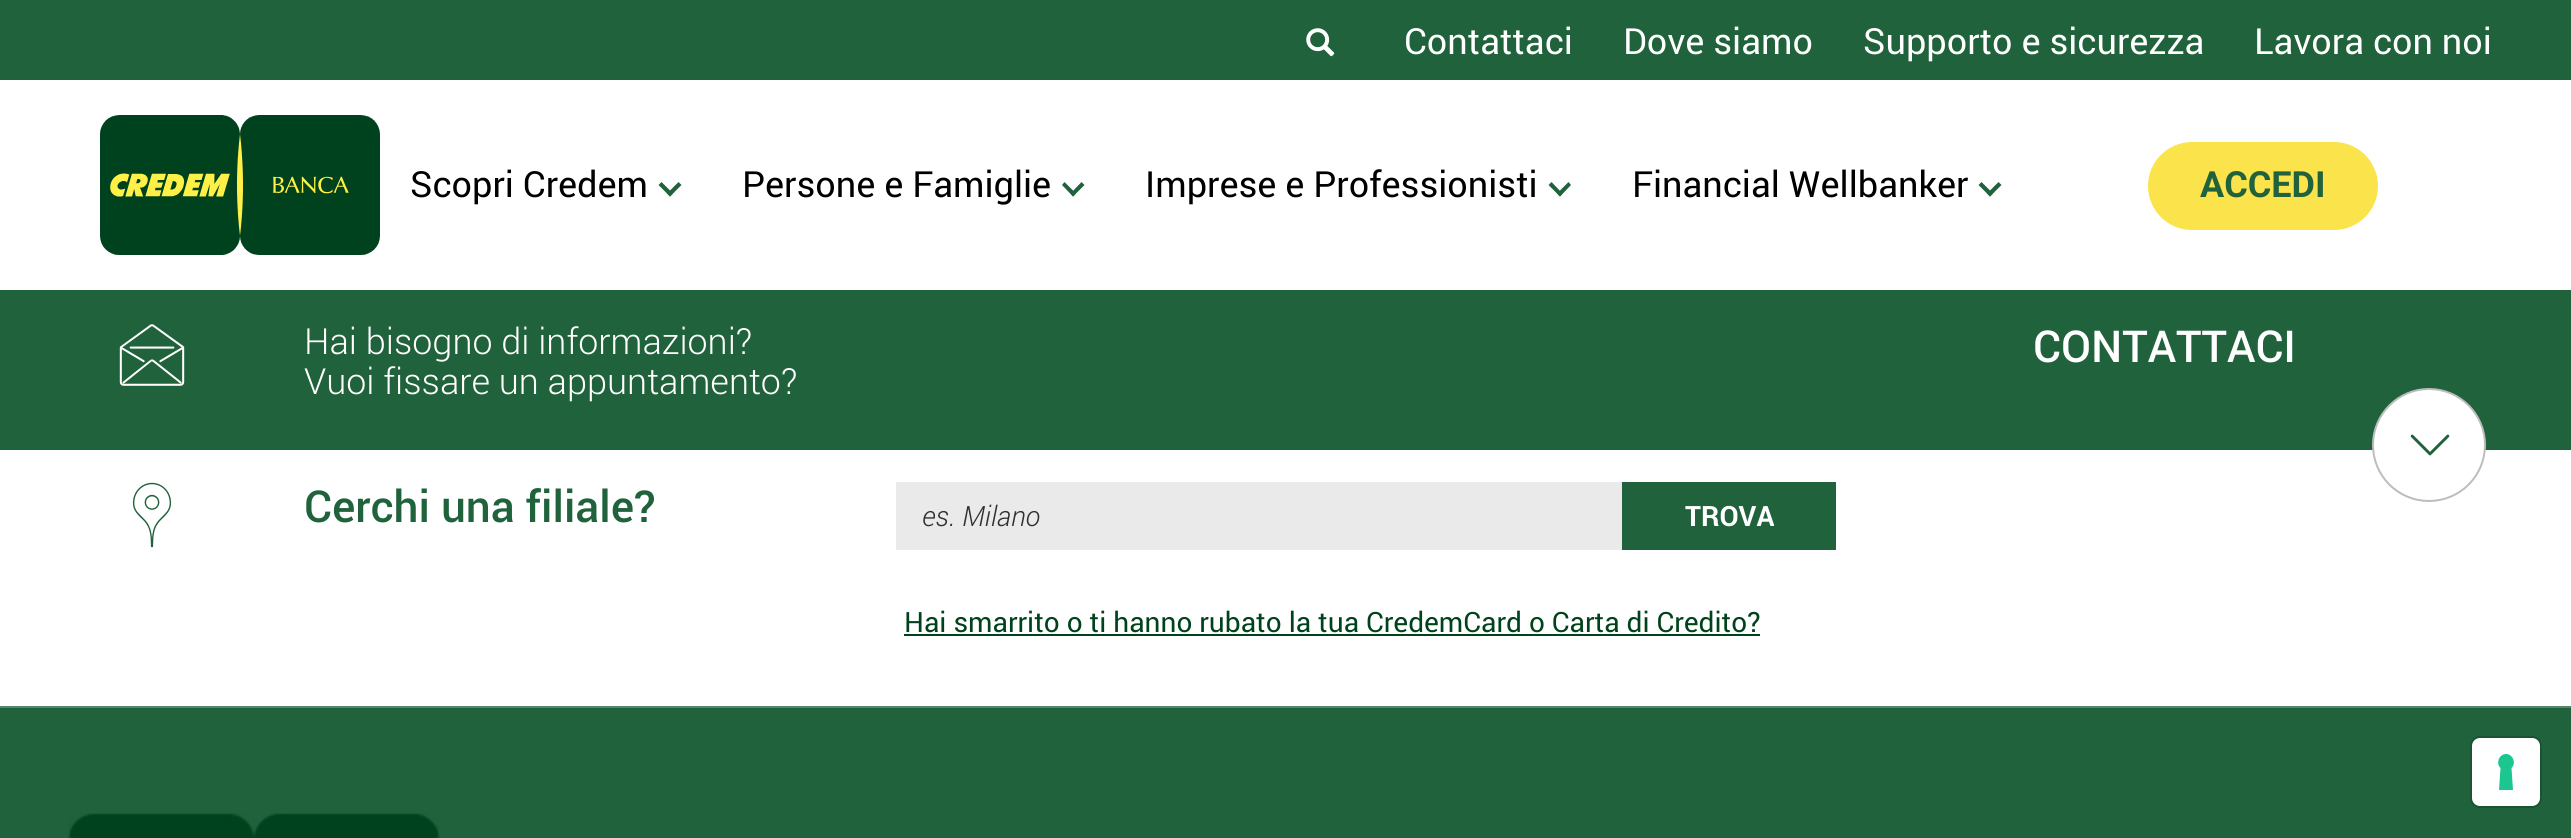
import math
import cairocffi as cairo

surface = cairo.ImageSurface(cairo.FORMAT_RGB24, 2571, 838)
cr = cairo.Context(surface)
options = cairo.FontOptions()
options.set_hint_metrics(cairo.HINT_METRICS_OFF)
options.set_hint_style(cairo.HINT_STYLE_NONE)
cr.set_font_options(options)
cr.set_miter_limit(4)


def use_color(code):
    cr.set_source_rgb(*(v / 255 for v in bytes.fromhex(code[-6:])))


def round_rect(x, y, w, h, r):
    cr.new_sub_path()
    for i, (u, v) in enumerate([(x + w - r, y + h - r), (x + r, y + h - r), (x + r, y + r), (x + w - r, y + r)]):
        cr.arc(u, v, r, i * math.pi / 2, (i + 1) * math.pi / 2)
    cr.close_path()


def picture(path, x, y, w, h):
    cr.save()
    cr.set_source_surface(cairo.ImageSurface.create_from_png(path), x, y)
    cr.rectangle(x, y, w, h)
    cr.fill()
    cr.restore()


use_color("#ffffff")
cr.paint()
use_color("#20623b")
cr.rectangle(0, 0, 2571, 80)
cr.fill()
picture("img1.png", 1306, 28, 29, 29)
cr.select_font_face("roboto")
cr.set_font_size(36)
use_color("#ffffff")
cr.move_to(1404, 54)
cr.show_text("Contattaci")
cr.move_to(1623, 54)
cr.show_text("Dove siamo")
cr.move_to(1863, 54)
cr.show_text("Supporto e sicurezza")
cr.move_to(2254, 54)
cr.show_text("Lavora con noi")
picture("img2.png", 100, 115, 280, 140)
use_color("#000000")
cr.move_to(410, 197)
cr.show_text("Scopri Credem")
use_color("#20623b")
cr.new_path()
cr.move_to(678.5, 182)
cr.line_to(681.5, 185)
cr.line_to(670, 196.5)
cr.line_to(667, 193.5)
cr.close_path()
cr.fill()
cr.new_path()
cr.move_to(661.5, 182)
cr.line_to(673, 193.5)
cr.line_to(670, 196.5)
cr.line_to(658.5, 185)
cr.close_path()
cr.fill()
use_color("#000000")
cr.move_to(742, 197)
cr.show_text("Persone e Famiglie")
use_color("#20623b")
cr.new_path()
cr.move_to(1081.5, 182)
cr.line_to(1084.5, 185)
cr.line_to(1073, 196.5)
cr.line_to(1070.5, 193.5)
cr.close_path()
cr.fill()
cr.new_path()
cr.move_to(1064.5, 182)
cr.line_to(1076, 193.5)
cr.line_to(1073, 196.5)
cr.line_to(1062, 185)
cr.close_path()
cr.fill()
use_color("#000000")
cr.move_to(1145, 197)
cr.show_text("Imprese e Professionisti")
use_color("#20623b")
cr.new_path()
cr.move_to(1568.5, 182)
cr.line_to(1571, 185)
cr.line_to(1560, 196.5)
cr.line_to(1557, 193.5)
cr.close_path()
cr.fill()
cr.new_path()
cr.move_to(1551.5, 182)
cr.line_to(1562.5, 193.5)
cr.line_to(1560, 196.5)
cr.line_to(1548.5, 185)
cr.close_path()
cr.fill()
use_color("#000000")
cr.move_to(1632, 197)
cr.show_text("Financial Wellbanker")
use_color("#20623b")
cr.new_path()
cr.move_to(1998.5, 182)
cr.line_to(2001.5, 185)
cr.line_to(1990, 196.5)
cr.line_to(1987, 193.5)
cr.close_path()
cr.fill()
cr.new_path()
cr.move_to(1981.5, 182)
cr.line_to(1993, 193.5)
cr.line_to(1990, 196.5)
cr.line_to(1978.5, 185)
cr.close_path()
cr.fill()
use_color("#fbe34c")
round_rect(2148, 142, 230, 88, 44)
cr.fill()
cr.select_font_face("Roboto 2", cairo.FONT_SLANT_NORMAL, cairo.FONT_WEIGHT_BOLD)
use_color("#20623b")
cr.move_to(2200, 197)
cr.show_text("ACCEDI")
cr.rectangle(0, 290, 2571, 160)
cr.fill()
picture("img3.png", 119, 324, 66, 62)
cr.select_font_face("Roboto Light")
use_color("#ffffff")
cr.move_to(304, 354)
cr.show_text("Hai bisogno di informazioni?")
cr.move_to(304, 394)
cr.show_text("Vuoi fissare un appuntamento?")
cr.select_font_face("Roboto Medium")
cr.set_font_size(44)
cr.move_to(2033, 362)
cr.show_text("CONTATTACI")
cr.new_path()
cr.arc(2429, 445, 56, 0, 2 * math.pi)
cr.fill_preserve()
use_color("#bdbdbd")
cr.stroke()
picture("img4.png", 2410, 434, 40, 22)
picture("img5.png", 132, 482, 40, 66)
use_color("#20623b")
cr.move_to(304, 522)
cr.show_text("Cerchi una filiale?")
use_color("#eaeaea")
cr.rectangle(897, 483, 726, 66)
cr.fill_preserve()
cr.stroke()
cr.select_font_face("Roboto Light", cairo.FONT_SLANT_ITALIC)
cr.set_font_size(28)
use_color("#303030")
cr.move_to(922, 526)
cr.show_text("es. Milano")
use_color("#20623b")
cr.rectangle(1622, 482, 214, 68)
cr.fill()
cr.select_font_face("roboto", cairo.FONT_SLANT_NORMAL, cairo.FONT_WEIGHT_BOLD)
use_color("#ffffff")
cr.move_to(1685, 526)
cr.show_text("TROVA")
cr.select_font_face("roboto")
use_color("#00421b")
cr.move_to(904, 632)
cr.show_text("Hai smarrito o ti hanno rubato la tua CredemCard o Carta di Credito?")
cr.rectangle(904, 634, 856, 2)
cr.fill()
use_color("#20623b")
cr.rectangle(0, 708, 2571, 130)
cr.fill()
use_color("#538567")
cr.rectangle(0, 706, 2571, 2)
cr.fill()
picture("img6.png", 68, 813, 372, 25)
round_rect(2471, 737, 70, 70, 9)
use_color("#1b5332")
cr.stroke()
use_color("#ffffff")
round_rect(2472, 738, 68, 68, 8)
cr.fill()
use_color("#1cc691")
cr.set_fill_rule(cairo.FILL_RULE_EVEN_ODD)
cr.new_path()
cr.move_to(2506, 754)
cr.curve_to(2513, 754, 2516.5, 763.5, 2511.5, 768)
cr.line_to(2513, 790)
cr.line_to(2499, 790)
cr.line_to(2500.5, 768)
cr.curve_to(2495.5, 763.5, 2499, 754, 2506, 754)
cr.close_path()
cr.fill()
surface.write_to_png("result.png")
